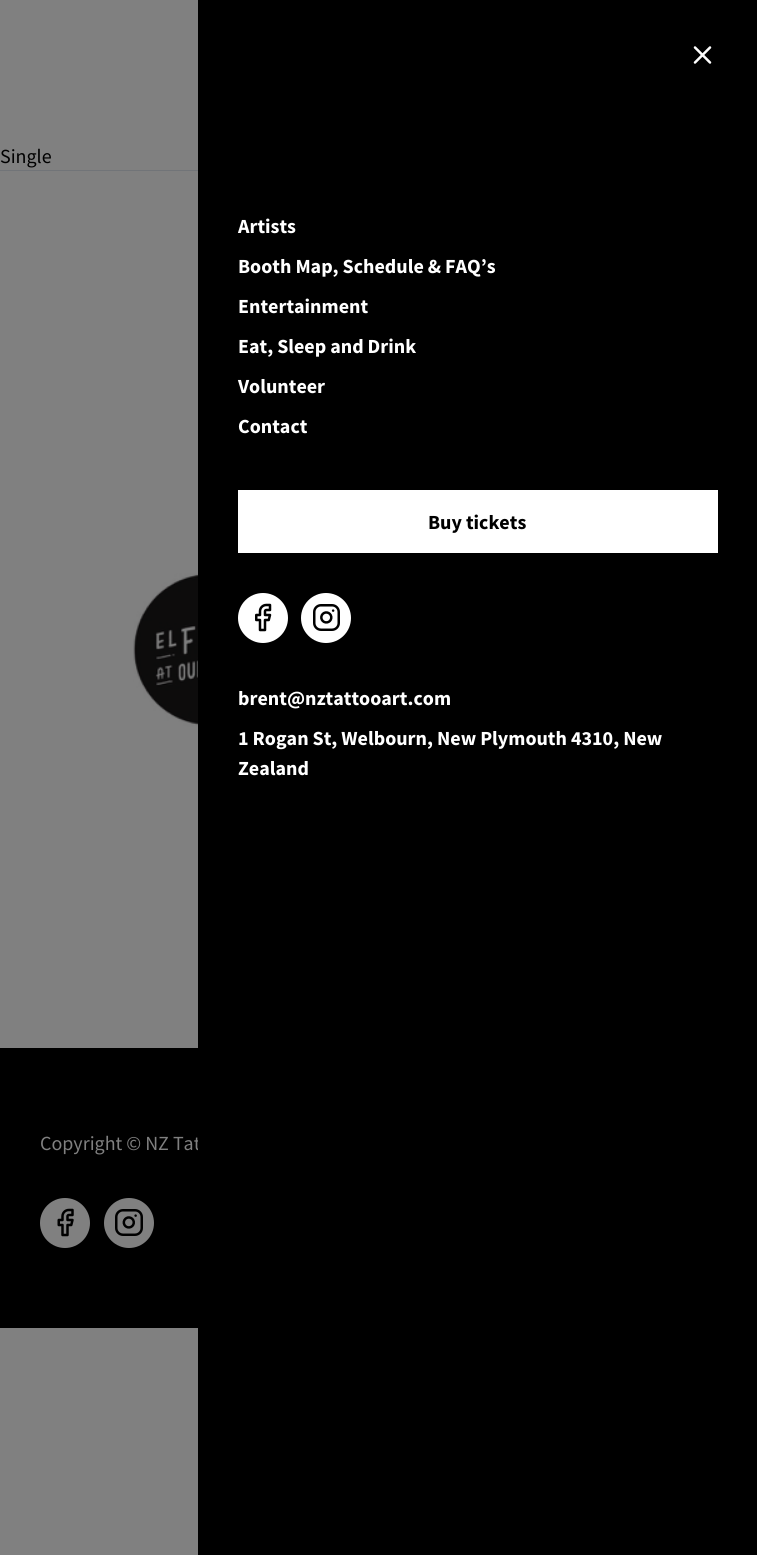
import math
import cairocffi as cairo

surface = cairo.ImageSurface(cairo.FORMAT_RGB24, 757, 1555)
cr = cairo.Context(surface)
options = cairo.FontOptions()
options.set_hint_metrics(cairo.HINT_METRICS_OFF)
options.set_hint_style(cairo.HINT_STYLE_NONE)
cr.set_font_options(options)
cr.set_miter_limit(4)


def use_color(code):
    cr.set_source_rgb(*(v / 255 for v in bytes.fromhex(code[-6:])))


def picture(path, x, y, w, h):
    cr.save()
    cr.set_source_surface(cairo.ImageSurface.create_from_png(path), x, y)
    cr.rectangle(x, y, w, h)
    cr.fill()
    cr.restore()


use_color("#808080")
cr.paint()
cr.select_font_face("Source Sans Pro")
cr.set_font_size(20)
use_color("#000000")
cr.move_to(0, 163)
cr.show_text("Single")
use_color("#717478")
cr.rectangle(0, 170, 198, 1)
cr.fill()
picture("img1.png", 133, 573, 65, 154)
use_color("#000000")
cr.rectangle(0, 1048, 198, 280)
cr.fill()
use_color("#808080")
cr.move_to(40, 1150)
cr.show_text("Copyright © NZ Tat")
use_color("#000000")
cr.rectangle(198, 0, 559, 1555)
cr.fill()
cr.new_path()
cr.move_to(710, 47.5)
cr.line_to(695, 62.5)
cr.move_to(695, 47.5)
cr.line_to(710, 62.5)
use_color("#ffffff")
cr.set_line_width(2.5)
cr.set_line_cap(cairo.LINE_CAP_ROUND)
cr.set_line_join(cairo.LINE_JOIN_ROUND)
cr.stroke()
cr.select_font_face("Source Sans Pro", cairo.FONT_SLANT_NORMAL, cairo.FONT_WEIGHT_BOLD)
cr.move_to(238, 233)
cr.show_text("Artists")
cr.move_to(238, 273)
cr.show_text("Booth Map, Schedule & FAQ’s")
cr.move_to(238, 313)
cr.show_text("Entertainment")
cr.move_to(238, 353)
cr.show_text("Eat, Sleep and Drink")
cr.move_to(238, 393)
cr.show_text("Volunteer")
cr.move_to(238, 433)
cr.show_text("Contact")
cr.rectangle(238, 490, 480, 63)
cr.fill()
use_color("#000000")
cr.move_to(428, 529)
cr.show_text("Buy tickets")
use_color("#ffffff")
cr.new_path()
cr.arc(263, 618, 25, 0, 2 * math.pi)
cr.fill()
picture("img2.png", 255, 603, 17, 29)
cr.arc(326, 618, 25, 0, 2 * math.pi)
cr.fill()
picture("img3.png", 313, 604, 27, 27)
cr.move_to(238, 705)
cr.show_text("brent@nztattooart.com")
cr.move_to(238, 745)
cr.show_text("1 Rogan St, Welbourn, New Plymouth 4310, New")
cr.move_to(238, 775)
cr.show_text("Zealand")
use_color("#808080")
cr.new_path()
cr.arc(65, 1223, 25, 0, 2 * math.pi)
cr.fill()
picture("img4.png", 57, 1208, 17, 29)
cr.arc(129, 1223, 25, 0, 2 * math.pi)
cr.fill()
picture("img5.png", 115, 1209, 28, 27)
surface.write_to_png("result.png")
